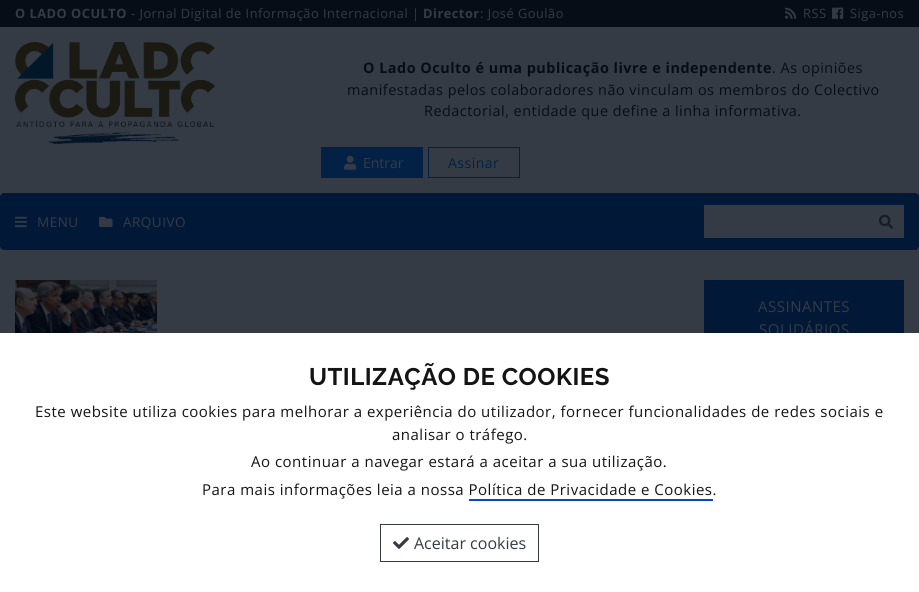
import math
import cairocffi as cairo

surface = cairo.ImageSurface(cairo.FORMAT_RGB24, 919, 592)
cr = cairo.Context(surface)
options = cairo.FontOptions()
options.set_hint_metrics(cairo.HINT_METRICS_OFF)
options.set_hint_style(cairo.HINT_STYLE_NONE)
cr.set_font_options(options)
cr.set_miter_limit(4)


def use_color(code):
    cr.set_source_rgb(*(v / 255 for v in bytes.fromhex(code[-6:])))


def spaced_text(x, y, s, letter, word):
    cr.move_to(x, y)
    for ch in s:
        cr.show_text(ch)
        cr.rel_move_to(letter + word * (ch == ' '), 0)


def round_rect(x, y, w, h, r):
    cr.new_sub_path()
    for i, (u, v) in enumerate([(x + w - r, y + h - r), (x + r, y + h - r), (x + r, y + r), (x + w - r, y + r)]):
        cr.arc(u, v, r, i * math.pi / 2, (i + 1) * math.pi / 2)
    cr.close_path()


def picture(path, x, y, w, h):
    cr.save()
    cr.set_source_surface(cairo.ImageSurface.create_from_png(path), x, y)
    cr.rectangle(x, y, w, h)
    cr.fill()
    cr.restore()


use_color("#353b45")
cr.paint()
use_color("#070d16")
cr.rectangle(0, 0, 919, 27)
cr.fill()
cr.select_font_face("Open Sans", cairo.FONT_SLANT_NORMAL, cairo.FONT_WEIGHT_BOLD)
cr.set_font_size(12.8)
use_color("#353b45")
spaced_text(15, 18, "O LADO OCULTO", 0.5, 0)
cr.select_font_face("Open Sans")
spaced_text(131, 18, "- Jornal Digital de Informação Internacional |", 0.5, 0)
cr.select_font_face("Open Sans", cairo.FONT_SLANT_NORMAL, cairo.FONT_WEIGHT_BOLD)
spaced_text(423, 18, "Director", 0.5, 0)
cr.select_font_face("Open Sans")
spaced_text(480, 18, ": José Goulão", 0.5, 0)
picture("img1.png", 785, 7, 12, 12)
spaced_text(803, 18, "RSS", 0.5, 0)
picture("img2.png", 832, 7, 12, 12)
spaced_text(850, 18, "Siga-nos", 0.5, 0)
picture("img3.png", 15, 42, 200, 102)
cr.select_font_face("Open Sans", cairo.FONT_SLANT_NORMAL, cairo.FONT_WEIGHT_BOLD)
cr.set_font_size(14.4)
use_color("#070d16")
spaced_text(363, 73, "O Lado Oculto é uma publicação livre e independente", 0.5, 0)
cr.select_font_face("Open Sans")
spaced_text(772, 73, ". As opiniões", 0.5, 0)
spaced_text(347, 95, "manifestadas pelos colaboradores não vinculam os membros do Colectivo", 0.5, 0)
spaced_text(424, 116, "Redactorial, entidade que define a linha informativa.", 0.5, 0)
use_color("#022145")
cr.rectangle(321, 147, 102, 31)
cr.fill()
picture("img4.png", 344, 155, 13, 15)
cr.set_font_size(14)
use_color("#353b45")
cr.move_to(363, 168)
cr.show_text("Entrar")
cr.rectangle(428.5, 147.5, 91, 30)
use_color("#022145")
cr.set_line_width(1)
cr.stroke()
spaced_text(448, 168, "Assinar", 0.5, 0)
use_color("#021837")
round_rect(0, 193, 919, 57, 4)
cr.fill()
picture("img5.png", 15, 216, 12, 12)
cr.set_font_size(13.5)
use_color("#353b45")
spaced_text(37, 227, "MENU", 0.5, 0)
picture("img6.png", 99, 216, 14, 11)
spaced_text(123, 227, "ARQUIVO", 0.5, 0)
cr.rectangle(704, 205, 200, 33)
cr.fill()
picture("img7.png", 879, 214, 14, 15)
picture("img8.png", 15, 280, 142, 53)
use_color("#021837")
cr.rectangle(704, 280, 200, 53)
cr.fill()
cr.set_font_size(15)
use_color("#353b45")
spaced_text(758, 312, "ASSINANTES", 0.5, 0)
spaced_text(759, 335, "SOLIDÁRIOS", 0.5, 0)
use_color("#ffffff")
cr.rectangle(0, 333, 919, 259)
cr.fill()
cr.select_font_face("Raleway", cairo.FONT_SLANT_NORMAL, cairo.FONT_WEIGHT_BOLD)
cr.set_font_size(24)
use_color("#141414")
spaced_text(309, 385, "UTILIZAÇÃO DE COOKIES", 0.5, 0)
cr.select_font_face("Open Sans")
cr.set_font_size(15)
spaced_text(35, 417, "Este website utiliza cookies para melhorar a experiência do utilizador, fornecer funcionalidades de redes sociais e", 0.5, 0)
spaced_text(392, 440, "analisar o tráfego.", 0.5, 0)
spaced_text(251, 467, "Ao continuar a navegar estará a aceitar a sua utilização.", 0.5, 0)
spaced_text(202, 495, "Para mais informações leia a nossa Política de Privacidade e Cookies.", 0.5, 0)
use_color("#004eb9")
cr.rectangle(469, 499, 244, 2)
cr.fill()
cr.rectangle(380.5, 524.5, 158, 37)
use_color("#343a40")
cr.stroke()
picture("img9.png", 393, 537, 16, 12)
cr.set_font_size(16)
use_color("#353b45")
cr.move_to(414, 549)
cr.show_text("Aceitar cookies")
surface.write_to_png("result.png")
